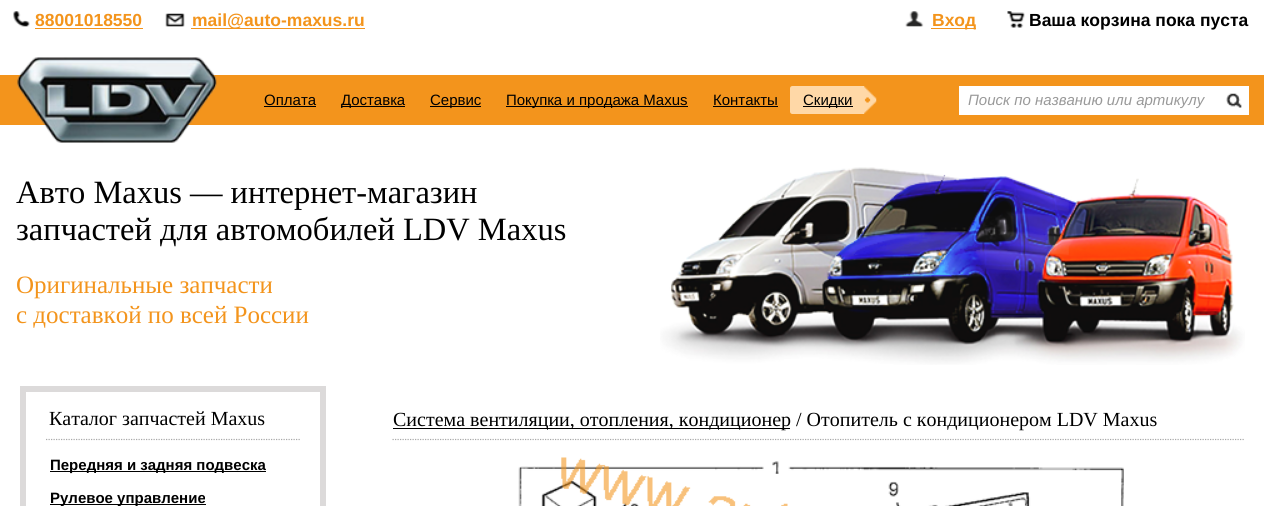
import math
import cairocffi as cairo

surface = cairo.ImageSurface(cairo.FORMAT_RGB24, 1264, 506)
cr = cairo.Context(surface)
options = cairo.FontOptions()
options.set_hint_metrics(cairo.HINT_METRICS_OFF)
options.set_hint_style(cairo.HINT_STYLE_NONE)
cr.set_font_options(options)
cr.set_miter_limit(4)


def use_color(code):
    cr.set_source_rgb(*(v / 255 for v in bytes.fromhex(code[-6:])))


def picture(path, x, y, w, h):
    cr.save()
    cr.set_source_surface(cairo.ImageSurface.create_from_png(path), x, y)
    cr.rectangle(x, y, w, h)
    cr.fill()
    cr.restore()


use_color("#ffffff")
cr.paint()
picture("img1.png", 13, 11, 17, 16)
cr.select_font_face("Liberation Sans", cairo.FONT_SLANT_NORMAL, cairo.FONT_WEIGHT_BOLD)
cr.set_font_size(17.5)
use_color("#f3941c")
cr.move_to(35, 26)
cr.show_text("88001018550")
cr.rectangle(35, 28, 108, 1)
cr.fill()
picture("img2.png", 165, 13, 20, 14)
cr.rectangle(191, 28, 174, 1)
cr.fill()
cr.move_to(192, 26)
cr.show_text("mail@auto-maxus.ru")
picture("img3.png", 905, 11, 19, 16)
cr.rectangle(931, 28, 45, 1)
cr.fill()
cr.move_to(932, 26)
cr.show_text("Вход")
picture("img4.png", 1007, 11, 18, 17)
use_color("#000000")
cr.move_to(1029, 26)
cr.show_text("Ваша корзина пока пуста")
use_color("#f3941c")
cr.rectangle(0, 75, 1264, 50)
cr.fill()
picture("img5.png", 17, 57, 200, 86)
cr.select_font_face("Liberation Sans")
cr.set_font_size(15)
use_color("#000000")
cr.move_to(264, 105)
cr.show_text("Оплата")
cr.rectangle(264, 106, 52, 1)
cr.fill()
cr.rectangle(341, 106, 64, 1)
cr.fill()
cr.move_to(341, 105)
cr.show_text("Доставка")
cr.rectangle(430, 106, 51, 1)
cr.fill()
cr.move_to(430, 105)
cr.show_text("Сервис")
cr.rectangle(506, 106, 182, 1)
cr.fill()
cr.move_to(506, 105)
cr.show_text("Покупка и продажа Maxus")
cr.move_to(713, 105)
cr.show_text("Контакты")
cr.rectangle(713, 106, 65, 1)
cr.fill()
use_color("#ffd8a7")
cr.new_path()
cr.move_to(792.5, 86)
cr.line_to(864, 86)
cr.line_to(864, 114)
cr.line_to(792.5, 114)
cr.curve_to(791, 114, 790, 113, 790, 111.5)
cr.line_to(790, 88.5)
cr.curve_to(790, 87, 791, 86, 792.5, 86)
cr.close_path()
cr.fill()
use_color("#000000")
cr.rectangle(803, 106, 50, 1)
cr.fill()
cr.move_to(803, 105)
cr.show_text("Скидки")
picture("img6.png", 864, 86, 13, 28)
use_color("#ffffff")
cr.rectangle(959, 86, 290, 29)
cr.fill()
cr.select_font_face("Liberation Sans", cairo.FONT_SLANT_ITALIC)
use_color("#999999")
cr.move_to(968, 105)
cr.show_text("Поиск по названию или артикулу")
picture("img7.png", 1226, 93, 16, 15)
cr.select_font_face("Liberation Serif")
cr.set_font_size(32.5)
use_color("#000000")
cr.move_to(16, 203)
cr.show_text("Авто Maxus — интернет-магазин")
cr.move_to(16, 240)
cr.show_text("запчастей для автомобилей LDV Maxus")
picture("img8.png", 660, 167, 585, 198)
cr.set_font_size(25)
use_color("#f3941c")
cr.move_to(16, 293)
cr.show_text("Оригинальные запчасти")
cr.move_to(16, 323)
cr.show_text("с доставкой по всей России")
cr.rectangle(23, 389, 300, 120)
use_color("#dcdada")
cr.set_line_width(6)
cr.stroke()
cr.new_path()
cr.move_to(46, 439.5)
cr.line_to(300, 439.5)
use_color("#a9a9a9")
cr.set_line_width(1.2)
cr.set_dash([1.25, 1.25])
cr.stroke()
cr.set_font_size(20)
use_color("#000000")
cr.move_to(49, 425)
cr.show_text("Каталог запчастей Maxus")
cr.rectangle(50, 471, 216, 1)
cr.fill()
cr.select_font_face("Liberation Sans", cairo.FONT_SLANT_NORMAL, cairo.FONT_WEIGHT_BOLD)
cr.set_font_size(15)
cr.move_to(50, 470)
cr.show_text("Передняя и задняя подвеска")
cr.rectangle(50, 504, 156, 1)
cr.fill()
cr.move_to(50, 503)
cr.show_text("Рулевое управление")
cr.new_path()
cr.move_to(392.5, 439.5)
cr.line_to(1245, 439.5)
use_color("#a9a9a9")
cr.stroke()
use_color("#000000")
cr.rectangle(393, 428, 397, 1)
cr.fill()
cr.select_font_face("Liberation Serif")
cr.set_font_size(20)
cr.move_to(393, 426)
cr.show_text("Система вентиляции, отопления, кондиционер / Отопитель с кондиционером LDV Maxus")
picture("img9.png", 518, 457, 606, 49)
surface.write_to_png("result.png")
